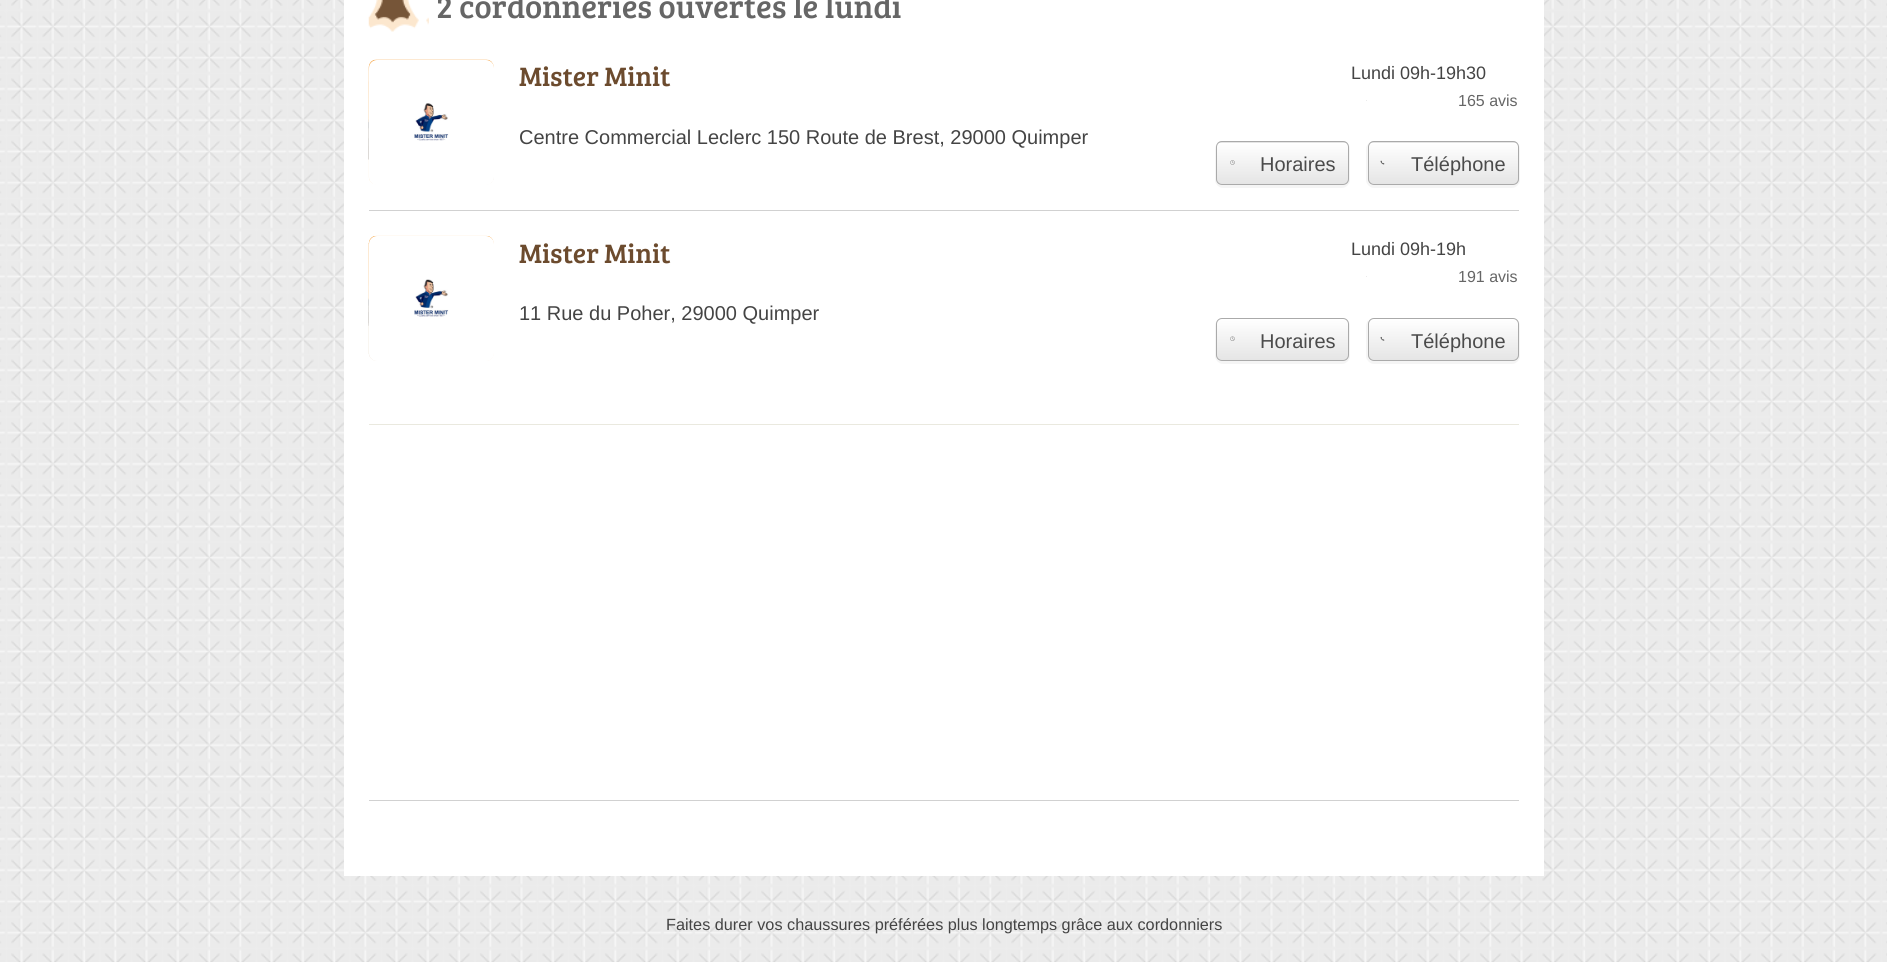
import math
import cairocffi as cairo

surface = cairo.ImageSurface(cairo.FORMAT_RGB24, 1887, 962)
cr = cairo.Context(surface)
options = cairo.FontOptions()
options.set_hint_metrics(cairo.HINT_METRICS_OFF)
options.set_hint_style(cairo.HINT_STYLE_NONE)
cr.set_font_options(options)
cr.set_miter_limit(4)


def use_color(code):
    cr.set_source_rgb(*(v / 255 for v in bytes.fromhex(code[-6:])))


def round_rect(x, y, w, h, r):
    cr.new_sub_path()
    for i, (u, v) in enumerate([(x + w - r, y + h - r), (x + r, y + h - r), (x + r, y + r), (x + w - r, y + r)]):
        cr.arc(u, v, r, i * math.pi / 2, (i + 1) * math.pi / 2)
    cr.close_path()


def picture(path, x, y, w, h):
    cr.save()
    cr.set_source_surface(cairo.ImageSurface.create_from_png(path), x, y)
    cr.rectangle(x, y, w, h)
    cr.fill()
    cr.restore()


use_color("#ffffff")
cr.paint()
picture("img1.png", 0, 0, 1887, 962)
use_color("#ffffff")
cr.rectangle(344, 0, 1200, 876)
cr.fill()
use_color("#eae9df")
cr.rectangle(369, 424, 1150, 1)
cr.fill()
picture("img2.png", 368, 0, 61, 32)
cr.select_font_face("Bree Serif")
cr.set_font_size(32.5)
use_color("#666666")
cr.move_to(436, 18)
cr.show_text("2 cordonneries ouvertes le lundi")
use_color("#d1d1d1")
cr.rectangle(369, 210, 1150, 1)
cr.fill()
picture("img3.png", 368, 59, 126, 126)
use_color("#ffffff")
round_rect(369, 60, 125, 125, 8)
cr.fill()
picture("img4.png", 414, 103, 35, 38)
cr.set_font_size(27.5)
use_color("#6c4b2e")
cr.move_to(519, 86)
cr.show_text("Mister Minit")
cr.select_font_face("Liberation Sans")
cr.set_font_size(18)
use_color("#444444")
cr.move_to(1351, 79)
cr.show_text("Lundi 09h-19h30")
use_color("#ebebeb")
cr.rectangle(1366, 100, 1, 1)
cr.fill()
cr.set_font_size(16)
use_color("#666666")
cr.move_to(1458, 106)
cr.show_text("165 avis")
cr.set_font_size(20)
use_color("#444444")
cr.move_to(519, 144)
cr.show_text("Centre Commercial Leclerc 150 Route de Brest, 29000 Quimper")
use_color("#f5f5f5")
cr.set_fill_rule(cairo.FILL_RULE_EVEN_ODD)
cr.new_path()
cr.move_to(1223, 141)
cr.curve_to(1219, 141, 1215, 145, 1215, 149)
cr.line_to(1215, 180)
cr.curve_to(1215, 184, 1219, 188, 1223, 188)
cr.line_to(1342, 188)
cr.curve_to(1346, 188, 1350, 184, 1350, 180)
cr.line_to(1350, 149)
cr.curve_to(1350, 145, 1346, 141, 1342, 141)
cr.close_path()
cr.move_to(1222, 141)
cr.curve_to(1219, 141, 1216, 144, 1216, 147)
cr.line_to(1216, 179)
cr.curve_to(1216, 182, 1219, 185, 1222, 185)
cr.line_to(1343, 185)
cr.curve_to(1346, 185, 1349, 182, 1349, 179)
cr.line_to(1349, 147)
cr.curve_to(1349, 144, 1346, 141, 1343, 141)
cr.close_path()
cr.fill()
cr.save()
cr.set_fill_rule(cairo.FILL_RULE_WINDING)
round_rect(1216, 141, 133, 44, 6)
cr.clip()
gradient = cairo.LinearGradient(1283, 101, 1283, 143)
gradient.add_color_stop_rgba(0, 1, 1, 1, 1)
gradient.add_color_stop_rgba(1, 0.898, 0.898, 0.898, 1)
cr.set_source(gradient)
cr.rectangle(1216, 141, 133, 2)
cr.fill()
gradient = cairo.LinearGradient(1283, 143, 1283, 184)
gradient.add_color_stop_rgba(0, 1, 1, 1, 1)
gradient.add_color_stop_rgba(1, 0.898, 0.898, 0.898, 1)
cr.set_source(gradient)
cr.rectangle(1216, 143, 133, 41)
cr.fill()
cr.restore()
round_rect(1216.5, 141.5, 132, 43, 5.5)
use_color("#aaaaaa")
cr.set_line_width(1)
cr.stroke()
picture("img5.png", 1230, 160, 5, 5)
use_color("#4b4b4b")
cr.move_to(1260, 171)
cr.show_text("Horaires")
use_color("#f5f5f5")
cr.new_path()
cr.move_to(1374, 141)
cr.curve_to(1370, 141, 1366, 145, 1366, 149)
cr.line_to(1366, 180)
cr.curve_to(1366, 184, 1370, 188, 1374, 188)
cr.line_to(1512, 188)
cr.curve_to(1516, 188, 1520, 184, 1520, 180)
cr.line_to(1520, 149)
cr.curve_to(1520, 145, 1516, 141, 1512, 141)
cr.close_path()
cr.move_to(1374, 141)
cr.curve_to(1370, 141, 1368, 144, 1368, 147)
cr.line_to(1368, 179)
cr.curve_to(1368, 182, 1370, 185, 1374, 185)
cr.line_to(1513, 185)
cr.curve_to(1516, 185, 1519, 182, 1519, 179)
cr.line_to(1519, 147)
cr.curve_to(1519, 144, 1516, 141, 1513, 141)
cr.close_path()
cr.fill()
cr.save()
cr.set_fill_rule(cairo.FILL_RULE_WINDING)
round_rect(1368, 141, 151, 44, 6)
cr.clip()
gradient = cairo.LinearGradient(1443, 101, 1443, 143)
gradient.add_color_stop_rgba(0, 1, 1, 1, 1)
gradient.add_color_stop_rgba(1, 0.898, 0.898, 0.898, 1)
cr.set_source(gradient)
cr.rectangle(1368, 141, 151, 2)
cr.fill()
gradient = cairo.LinearGradient(1443, 143, 1443, 184)
gradient.add_color_stop_rgba(0, 1, 1, 1, 1)
gradient.add_color_stop_rgba(1, 0.898, 0.898, 0.898, 1)
cr.set_source(gradient)
cr.rectangle(1368, 143, 151, 41)
cr.fill()
cr.restore()
round_rect(1368.5, 141.5, 150, 43, 5.5)
use_color("#aaaaaa")
cr.stroke()
picture("img6.png", 1380, 160, 5, 5)
use_color("#4b4b4b")
cr.move_to(1411, 171)
cr.show_text("Téléphone")
picture("img7.png", 368, 235, 126, 126)
use_color("#ffffff")
round_rect(369, 236, 125, 125, 8)
cr.fill()
picture("img8.png", 414, 279, 35, 38)
cr.select_font_face("Bree Serif")
cr.set_font_size(27.5)
use_color("#6c4b2e")
cr.move_to(519, 263)
cr.show_text("Mister Minit")
cr.select_font_face("Liberation Sans")
cr.set_font_size(18)
use_color("#444444")
cr.move_to(1351, 255)
cr.show_text("Lundi 09h-19h")
use_color("#ebebeb")
cr.rectangle(1366, 276, 1, 1)
cr.fill()
cr.set_font_size(16)
use_color("#666666")
cr.move_to(1458, 282)
cr.show_text("191 avis")
cr.set_font_size(20)
use_color("#444444")
cr.move_to(519, 320)
cr.show_text("11 Rue du Poher, 29000 Quimper")
use_color("#f5f5f5")
cr.set_fill_rule(cairo.FILL_RULE_WINDING)
cr.new_path()
cr.move_to(1217, 321)
cr.curve_to(1216, 322, 1215, 324, 1215, 326)
cr.line_to(1215, 356)
cr.curve_to(1215, 360, 1219, 364, 1223, 364)
cr.line_to(1342, 364)
cr.curve_to(1346, 364, 1350, 360, 1350, 356)
cr.line_to(1350, 326)
cr.curve_to(1350, 324, 1349, 322, 1348, 321)
cr.line_to(1349, 324)
cr.line_to(1349, 355)
cr.curve_to(1349, 359, 1346, 361, 1343, 361)
cr.line_to(1222, 361)
cr.curve_to(1219, 361, 1216, 359, 1216, 355)
cr.line_to(1216, 324)
cr.close_path()
cr.fill()
cr.save()
round_rect(1216, 318, 133, 43, 6)
cr.clip()
gradient = cairo.LinearGradient(1283, 319, 1283, 360)
gradient.add_color_stop_rgba(0, 1, 1, 1, 1)
gradient.add_color_stop_rgba(1, 0.898, 0.898, 0.898, 1)
cr.set_source(gradient)
cr.rectangle(1216, 319, 133, 41)
cr.fill()
cr.restore()
round_rect(1216.5, 318.5, 132, 42, 5.5)
use_color("#aaaaaa")
cr.stroke()
picture("img9.png", 1230, 336, 5, 5)
use_color("#4b4b4b")
cr.move_to(1260, 348)
cr.show_text("Horaires")
use_color("#f5f5f5")
cr.new_path()
cr.move_to(1368, 320)
cr.curve_to(1367, 322, 1366, 324, 1366, 326)
cr.line_to(1366, 356)
cr.curve_to(1366, 360, 1370, 364, 1374, 364)
cr.line_to(1512, 364)
cr.curve_to(1516, 364, 1520, 360, 1520, 356)
cr.line_to(1520, 326)
cr.curve_to(1520, 324, 1519, 322, 1518, 321)
cr.line_to(1519, 324)
cr.line_to(1519, 355)
cr.curve_to(1519, 359, 1516, 361, 1513, 361)
cr.line_to(1374, 361)
cr.curve_to(1370, 361, 1368, 359, 1368, 355)
cr.line_to(1368, 324)
cr.close_path()
cr.fill()
cr.save()
round_rect(1368, 318, 151, 43, 6)
cr.clip()
gradient = cairo.LinearGradient(1443, 319, 1443, 360)
gradient.add_color_stop_rgba(0, 1, 1, 1, 1)
gradient.add_color_stop_rgba(1, 0.898, 0.898, 0.898, 1)
cr.set_source(gradient)
cr.rectangle(1368, 319, 151, 41)
cr.fill()
cr.restore()
round_rect(1368.5, 318.5, 150, 42, 5.5)
use_color("#aaaaaa")
cr.stroke()
picture("img10.png", 1380, 336, 5, 5)
use_color("#4b4b4b")
cr.move_to(1411, 348)
cr.show_text("Téléphone")
use_color("#d1d1d1")
cr.rectangle(369, 800, 1150, 1)
cr.fill()
cr.set_font_size(16.25)
use_color("#444444")
cr.move_to(666, 930)
cr.show_text("Faites durer vos chaussures préférées plus longtemps grâce aux cordonniers")
surface.write_to_png("result.png")
